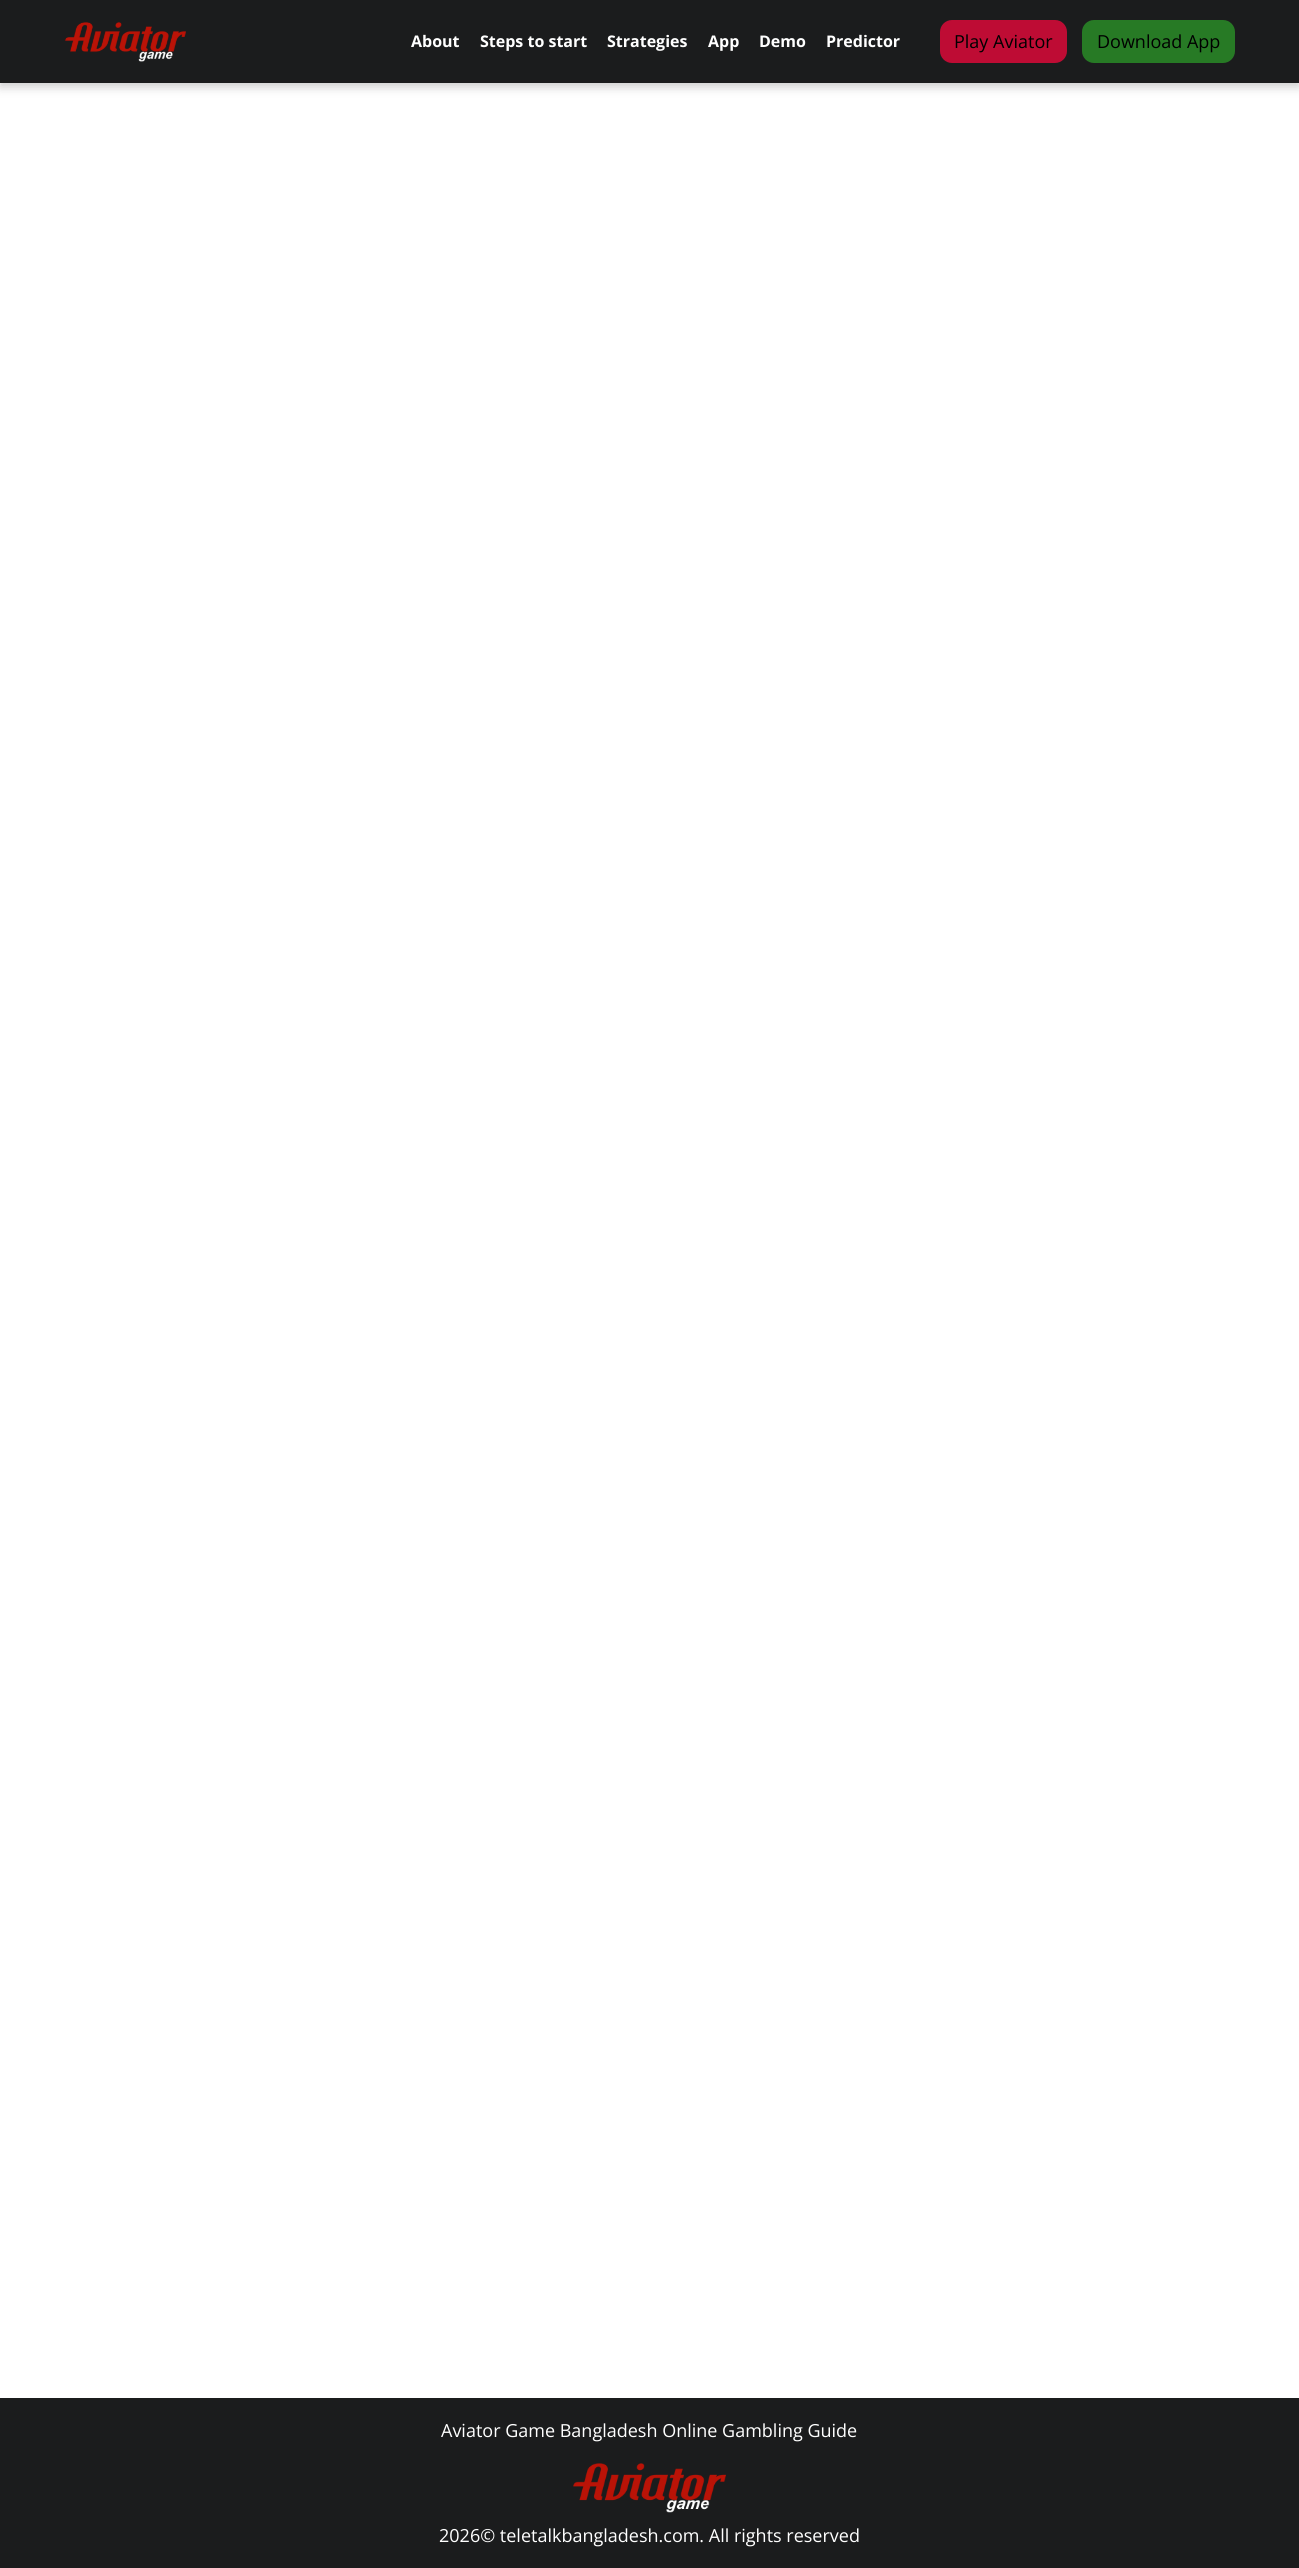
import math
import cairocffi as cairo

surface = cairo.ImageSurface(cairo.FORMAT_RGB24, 1299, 2568)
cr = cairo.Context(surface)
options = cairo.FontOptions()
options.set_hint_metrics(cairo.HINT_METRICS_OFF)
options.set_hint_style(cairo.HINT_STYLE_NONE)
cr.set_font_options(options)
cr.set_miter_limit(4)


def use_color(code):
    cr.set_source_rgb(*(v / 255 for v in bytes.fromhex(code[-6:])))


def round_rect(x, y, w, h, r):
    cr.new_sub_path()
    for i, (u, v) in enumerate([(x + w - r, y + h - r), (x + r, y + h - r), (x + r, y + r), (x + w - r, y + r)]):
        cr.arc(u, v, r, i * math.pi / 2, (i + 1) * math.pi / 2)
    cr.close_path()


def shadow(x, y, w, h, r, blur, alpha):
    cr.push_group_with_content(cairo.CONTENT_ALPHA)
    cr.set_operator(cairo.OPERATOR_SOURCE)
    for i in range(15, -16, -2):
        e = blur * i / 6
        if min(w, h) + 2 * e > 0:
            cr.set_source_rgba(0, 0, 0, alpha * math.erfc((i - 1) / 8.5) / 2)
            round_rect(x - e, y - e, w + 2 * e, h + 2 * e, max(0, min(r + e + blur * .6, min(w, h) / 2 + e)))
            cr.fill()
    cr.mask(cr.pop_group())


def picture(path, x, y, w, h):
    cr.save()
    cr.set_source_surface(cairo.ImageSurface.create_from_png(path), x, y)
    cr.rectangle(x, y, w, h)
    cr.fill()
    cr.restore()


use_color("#ffffff")
cr.paint()
use_color("#000000")
shadow(0, 4, 1299, 83, 0, 5, 0.2)
use_color("#1b1c1d")
cr.rectangle(0, 0, 1299, 83)
cr.fill()
picture("img1.png", 64, 21, 122, 41)
cr.select_font_face("Open Sans", cairo.FONT_SLANT_NORMAL, cairo.FONT_WEIGHT_BOLD)
cr.set_font_size(16)
use_color("#ffffff")
cr.move_to(411, 47)
cr.show_text("About")
cr.move_to(480, 47)
cr.show_text("Steps to start")
cr.move_to(607, 47)
cr.show_text("Strategies")
cr.move_to(708, 47)
cr.show_text("App")
cr.move_to(759, 47)
cr.show_text("Demo")
cr.move_to(826, 47)
cr.show_text("Predictor")
use_color("#be0c34")
round_rect(940, 20, 127, 43, 12)
cr.fill()
cr.select_font_face("Open Sans")
cr.set_font_size(18)
use_color("#000000")
cr.move_to(954, 48)
cr.show_text("Play Aviator")
use_color("#277a25")
round_rect(1082, 20, 153, 43, 12)
cr.fill()
use_color("#000000")
cr.move_to(1097, 48)
cr.show_text("Download App")
use_color("#1b1c1d")
cr.rectangle(0, 2398, 1299, 170)
cr.fill()
use_color("#ffffff")
cr.move_to(441, 2437)
cr.show_text("Aviator Game Bangladesh Online Gambling Guide")
picture("img2.png", 573, 2463, 153, 50)
cr.move_to(439, 2542)
cr.show_text("2026© teletalkbangladesh.com. All rights reserved")
surface.write_to_png("result.png")
